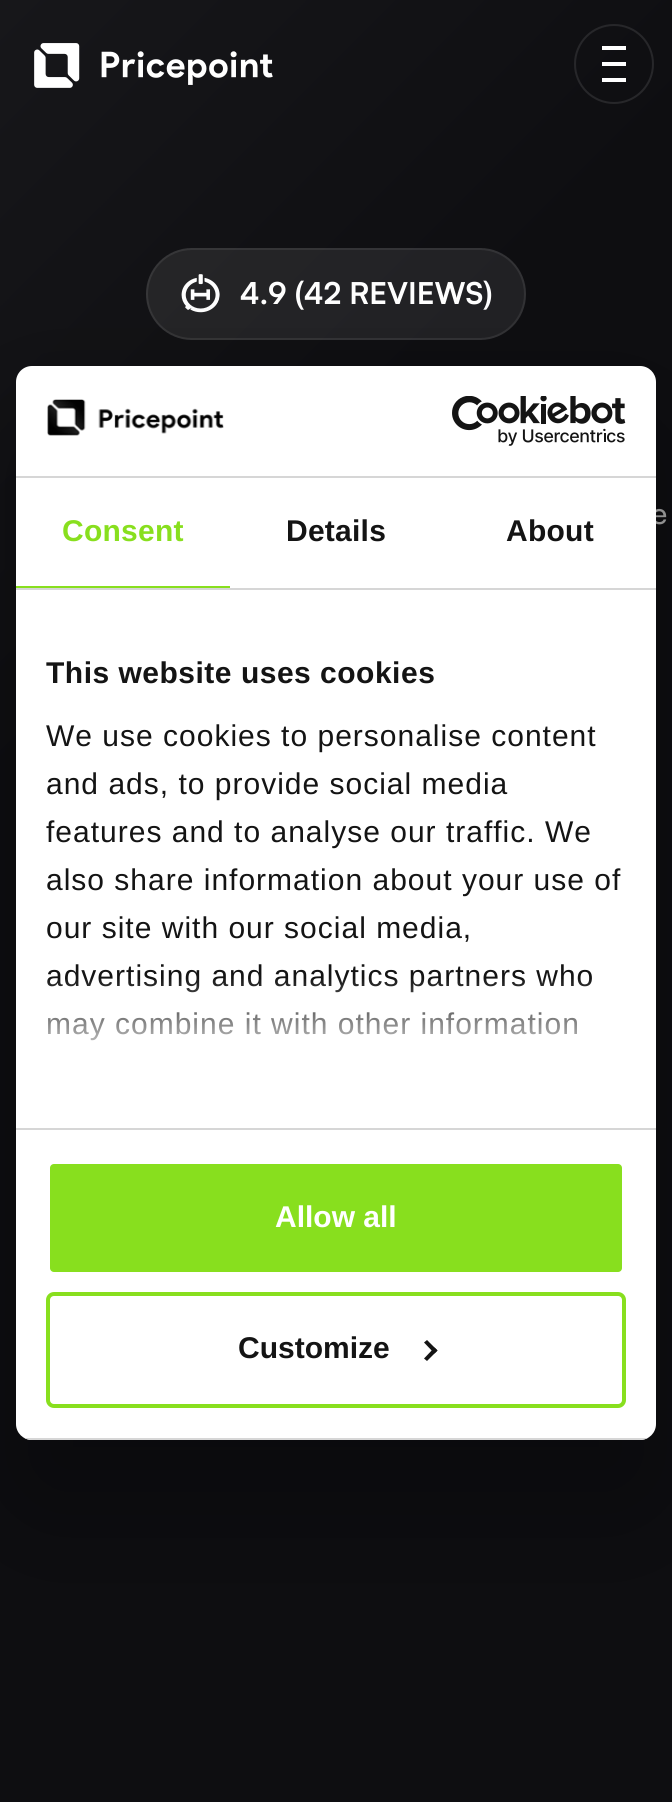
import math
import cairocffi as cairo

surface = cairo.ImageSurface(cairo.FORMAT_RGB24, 672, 1802)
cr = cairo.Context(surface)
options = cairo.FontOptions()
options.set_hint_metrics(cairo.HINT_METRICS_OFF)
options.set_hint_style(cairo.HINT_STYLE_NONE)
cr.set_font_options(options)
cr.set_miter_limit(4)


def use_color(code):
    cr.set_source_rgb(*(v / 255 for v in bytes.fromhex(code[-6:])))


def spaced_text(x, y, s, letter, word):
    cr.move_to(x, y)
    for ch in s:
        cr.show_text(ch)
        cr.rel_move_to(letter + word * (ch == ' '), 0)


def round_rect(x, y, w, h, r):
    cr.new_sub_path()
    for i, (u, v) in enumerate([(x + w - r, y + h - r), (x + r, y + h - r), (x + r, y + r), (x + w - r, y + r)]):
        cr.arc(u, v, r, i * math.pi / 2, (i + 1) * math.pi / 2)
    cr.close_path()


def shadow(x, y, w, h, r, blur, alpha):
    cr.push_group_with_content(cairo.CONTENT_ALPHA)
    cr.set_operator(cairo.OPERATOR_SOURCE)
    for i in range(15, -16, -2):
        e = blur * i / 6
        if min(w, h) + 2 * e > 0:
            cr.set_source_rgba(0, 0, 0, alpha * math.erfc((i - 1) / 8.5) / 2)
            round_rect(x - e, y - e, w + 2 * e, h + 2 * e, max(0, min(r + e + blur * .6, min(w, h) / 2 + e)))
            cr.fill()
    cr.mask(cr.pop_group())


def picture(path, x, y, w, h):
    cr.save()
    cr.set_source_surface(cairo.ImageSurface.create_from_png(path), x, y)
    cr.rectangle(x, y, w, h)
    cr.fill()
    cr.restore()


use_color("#ffffff")
cr.paint()
gradient = cairo.LinearGradient(-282, 283, 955, 1520)
gradient.add_color_stop_rgba(0, 0.09, 0.09, 0.102, 1)
gradient.add_color_stop_rgba(0.32, 0.055, 0.055, 0.067, 1)
cr.set_source(gradient)
cr.rectangle(0, 0, 672, 1802)
cr.fill()
picture("img1.png", 34, 43, 239, 45)
cr.arc(614, 64, 39, 0, 2 * math.pi)
use_color("#27272a")
cr.stroke()
use_color("#ffffff")
cr.rectangle(602, 46, 24, 4)
cr.fill()
cr.rectangle(602, 62, 24, 4)
cr.fill()
cr.rectangle(602, 78, 24, 4)
cr.fill()
cr.set_source_rgba(1, 1, 1, 0.08)
round_rect(146, 248, 380, 92, 46)
cr.fill()
round_rect(147, 249, 378, 90, 45)
cr.stroke()
picture("img2.png", 181, 274, 39, 39)
cr.select_font_face("Satoshi", cairo.FONT_SLANT_NORMAL, cairo.FONT_WEIGHT_BOLD)
cr.set_font_size(30)
use_color("#ffffff")
cr.move_to(240, 304)
cr.show_text("4.9 (42 REVIEWS)")
cr.select_font_face("Satoshi Medium")
use_color("#a9a9a9")
cr.move_to(651, 524)
cr.show_text("e")
use_color("#000000")
shadow(16, 430, 640, 1074, 16, 68, 0.3)
use_color("#ffffff")
round_rect(16, 366, 640, 1074, 16)
cr.fill()
use_color("#d6d6d6")
cr.rectangle(16, 476, 640, 2)
cr.fill()
picture("img3.png", 47, 399, 177, 37)
picture("img4.png", 452, 396, 174, 50)
cr.rectangle(16, 588, 640, 2)
cr.fill()
use_color("#88df1e")
cr.rectangle(16, 586, 214, 2)
cr.fill()
cr.select_font_face("Liberation Sans", cairo.FONT_SLANT_NORMAL, cairo.FONT_WEIGHT_BOLD)
spaced_text(62, 541, "Consent", 0.25, 0)
use_color("#141414")
spaced_text(286, 541, "Details", 0.25, 0)
spaced_text(506, 541, "About", 0.25, 0)
use_color("#d6d6d6")
cr.rectangle(16, 1128, 640, 2)
cr.fill()
use_color("#141414")
spaced_text(46, 683, "This website uses cookies", 0.5, 0)
cr.select_font_face("Liberation Sans")
spaced_text(46, 746, "We use cookies to personalise content", 1, 0)
spaced_text(46, 794, "and ads, to provide social media", 1, 0)
spaced_text(46, 842, "features and to analyse our traffic. We", 1, 0)
spaced_text(46, 890, "also share information about your use of", 1, 0)
spaced_text(46, 938, "our site with our social media,", 1, 0)
spaced_text(46, 986, "advertising and analytics partners who", 1, 0)
spaced_text(46, 1034, "may combine it with other information", 1, 0)
gradient = cairo.LinearGradient(323, 1127, 323, 977)
gradient.add_color_stop_rgba(0, 1, 1, 1, 1)
gradient.add_color_stop_rgba(0.5, 1, 1, 1, 0.8)
gradient.add_color_stop_rgba(1, 1, 1, 1, 0)
cr.set_source(gradient)
cr.rectangle(47, 979, 545, 62)
cr.fill()
cr.save()
round_rect(16, 366, 640, 1074, 16)
cr.clip()
use_color("#d6d6d6")
cr.rectangle(16, 1438, 640, 2)
cr.fill()
cr.restore()
use_color("#88df1e")
round_rect(48, 1162, 576, 112, 6)
cr.fill_preserve()
use_color("#ffffff")
cr.set_line_width(4)
cr.stroke()
cr.select_font_face("Liberation Sans", cairo.FONT_SLANT_NORMAL, cairo.FONT_WEIGHT_BOLD)
cr.move_to(275, 1227)
cr.show_text("Allow all")
round_rect(48, 1294, 576, 112, 6)
use_color("#88df1e")
cr.stroke()
use_color("#141414")
cr.move_to(238, 1358)
cr.show_text("Customize")
cr.new_path()
cr.move_to(427, 1340)
cr.line_to(437.5, 1350.5)
cr.line_to(434.5, 1353.5)
cr.line_to(424, 1342.5)
cr.close_path()
cr.fill()
cr.new_path()
cr.move_to(434.5, 1347.5)
cr.line_to(437.5, 1350.5)
cr.line_to(427, 1361)
cr.line_to(424, 1358.5)
cr.close_path()
cr.fill()
surface.write_to_png("result.png")
